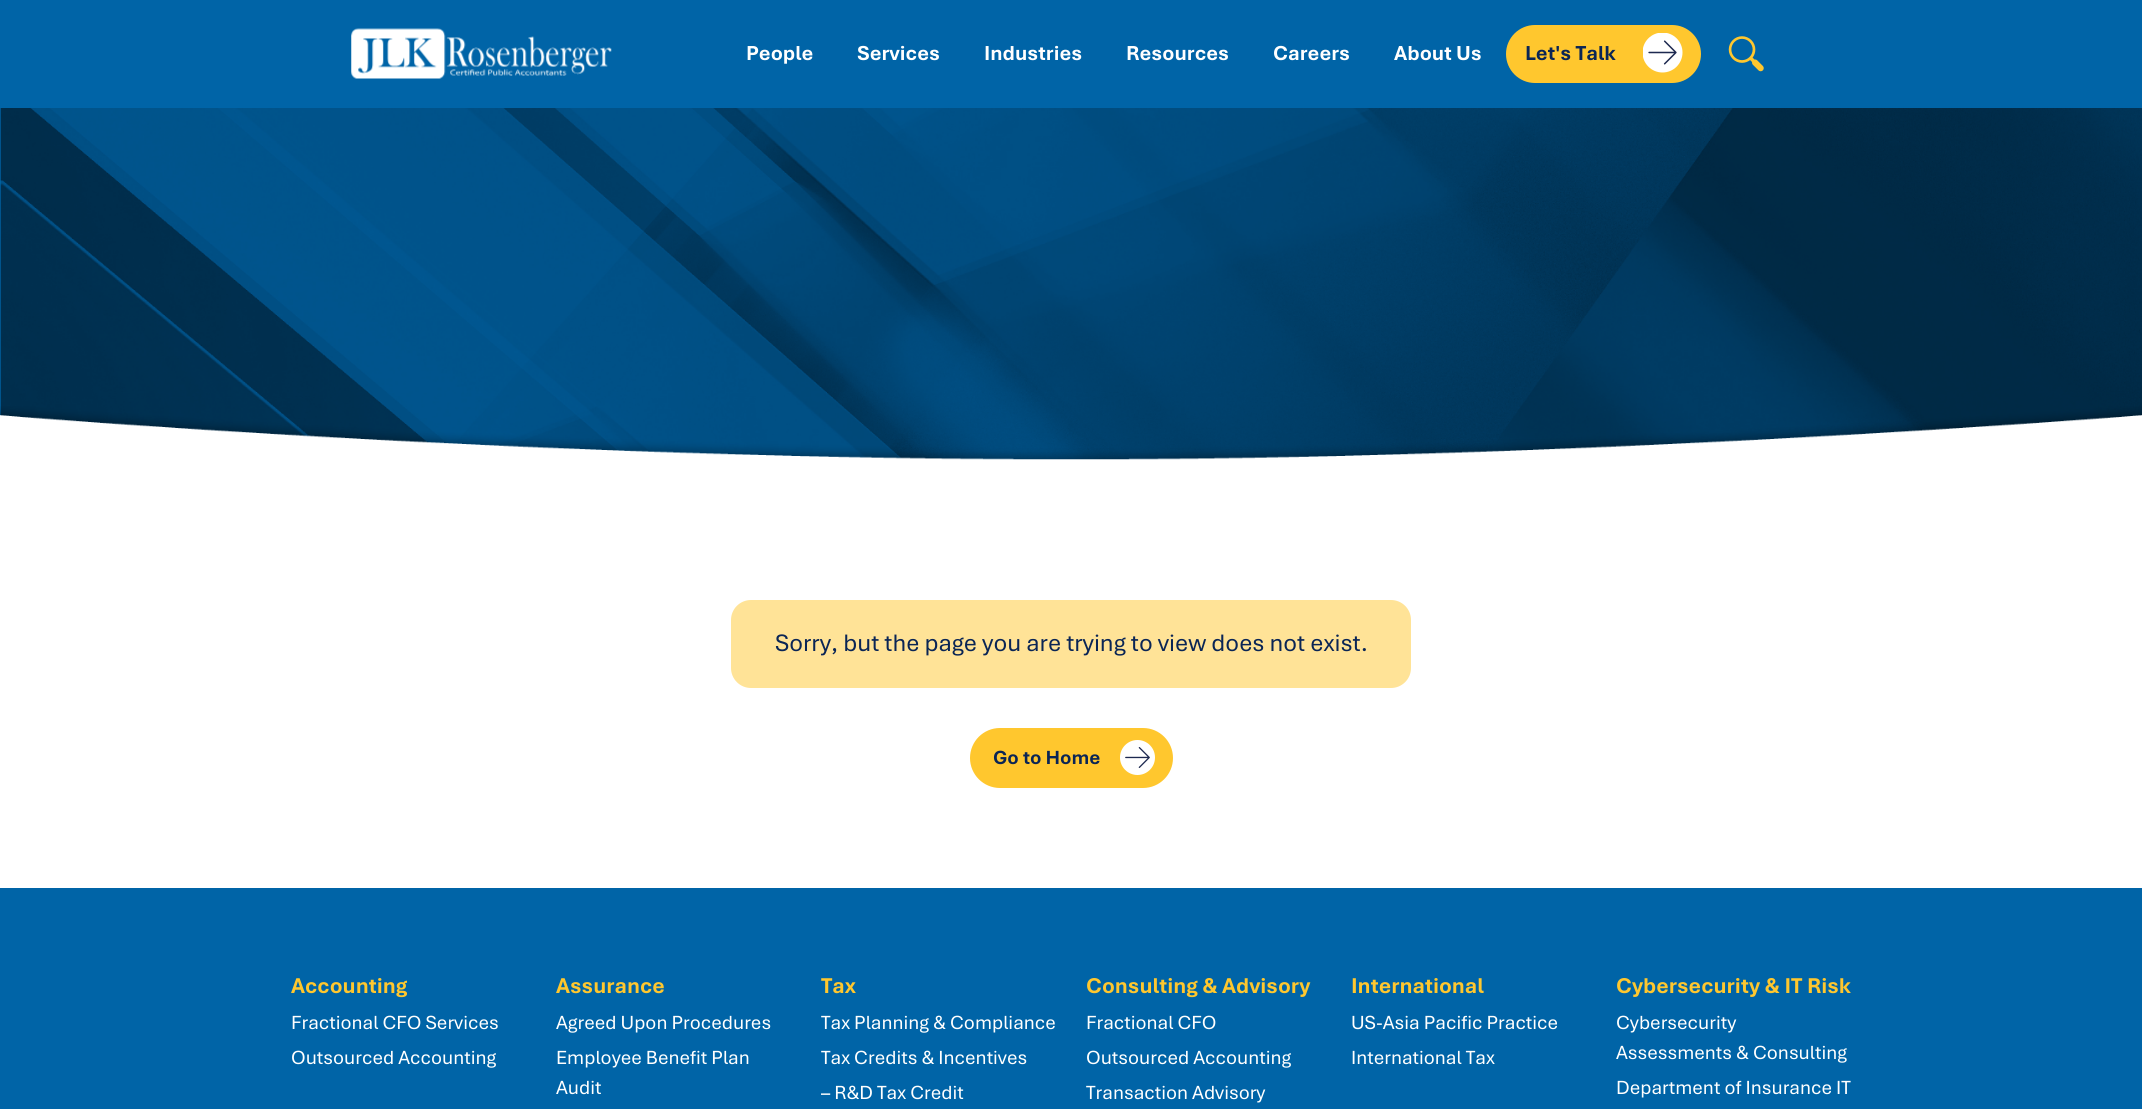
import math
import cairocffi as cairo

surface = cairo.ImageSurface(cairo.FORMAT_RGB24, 2142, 1109)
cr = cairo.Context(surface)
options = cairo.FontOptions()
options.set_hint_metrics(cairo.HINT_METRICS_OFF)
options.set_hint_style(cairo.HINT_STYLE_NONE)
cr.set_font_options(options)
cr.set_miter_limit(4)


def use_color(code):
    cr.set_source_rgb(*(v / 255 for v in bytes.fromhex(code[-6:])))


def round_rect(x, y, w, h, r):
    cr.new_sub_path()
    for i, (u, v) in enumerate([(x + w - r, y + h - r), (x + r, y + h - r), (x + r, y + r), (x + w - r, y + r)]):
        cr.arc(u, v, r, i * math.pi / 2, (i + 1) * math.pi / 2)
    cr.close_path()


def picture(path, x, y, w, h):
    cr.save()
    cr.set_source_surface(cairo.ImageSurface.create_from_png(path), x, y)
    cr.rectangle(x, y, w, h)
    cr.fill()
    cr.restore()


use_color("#ffffff")
cr.paint()
use_color("#0064a7")
cr.rectangle(0, 0, 2142, 108)
cr.fill()
picture("img1.png", 351, 28, 261, 51)
cr.select_font_face("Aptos", cairo.FONT_SLANT_NORMAL, cairo.FONT_WEIGHT_BOLD)
cr.set_font_size(21.25)
use_color("#ffffff")
cr.move_to(746, 60)
cr.show_text("People")
cr.move_to(857, 60)
cr.show_text("Services")
cr.move_to(984, 60)
cr.show_text("Industries")
cr.move_to(1126, 60)
cr.show_text("Resources")
cr.move_to(1273, 60)
cr.show_text("Careers")
cr.move_to(1394, 60)
cr.show_text("About Us")
use_color("#ffc72e")
round_rect(1506, 25, 195, 58, 29)
cr.fill()
use_color("#0a2555")
cr.move_to(1525, 60)
cr.show_text("Let's Talk")
picture("img2.png", 1643, 33, 40, 40)
picture("img3.png", 1728, 36, 36, 36)
picture("img4.png", 0, 108, 2142, 352)
picture("img5.png", 0, 406, 2142, 94)
use_color("#ffe397")
round_rect(731, 600, 680, 88, 20)
cr.fill()
cr.select_font_face("Aptos")
cr.set_font_size(25)
use_color("#0a2555")
cr.move_to(775, 651)
cr.show_text("Sorry, but the page you are trying to view does not exist.")
use_color("#ffc72e")
round_rect(971.5, 729.5, 200, 57, 28.5)
cr.fill_preserve()
cr.set_line_width(3)
cr.stroke()
cr.select_font_face("Aptos", cairo.FONT_SLANT_NORMAL, cairo.FONT_WEIGHT_BOLD)
cr.set_font_size(20)
use_color("#0a2555")
cr.move_to(993, 764)
cr.show_text("Go to Home")
picture("img6.png", 1120, 740, 35, 35)
use_color("#0064a7")
cr.rectangle(0, 888, 2142, 221)
cr.fill()
cr.set_font_size(22.5)
use_color("#ffc72e")
cr.move_to(291, 993)
cr.show_text("Accounting")
cr.select_font_face("Aptos")
cr.set_font_size(20)
use_color("#ffffff")
cr.move_to(291, 1029)
cr.show_text("Fractional CFO Services")
cr.move_to(291, 1064)
cr.show_text("Outsourced Accounting")
cr.select_font_face("Aptos", cairo.FONT_SLANT_NORMAL, cairo.FONT_WEIGHT_BOLD)
cr.set_font_size(22.5)
use_color("#ffc72e")
cr.move_to(556, 993)
cr.show_text("Assurance")
cr.select_font_face("Aptos")
cr.set_font_size(20)
use_color("#ffffff")
cr.move_to(556, 1029)
cr.show_text("Agreed Upon Procedures")
cr.move_to(556, 1064)
cr.show_text("Employee Benefit Plan")
cr.move_to(556, 1094)
cr.show_text("Audit")
cr.select_font_face("Aptos", cairo.FONT_SLANT_NORMAL, cairo.FONT_WEIGHT_BOLD)
cr.set_font_size(22.5)
use_color("#ffc72e")
cr.move_to(821, 993)
cr.show_text("Tax")
cr.select_font_face("Aptos")
cr.set_font_size(20)
use_color("#ffffff")
cr.move_to(821, 1029)
cr.show_text("Tax Planning & Compliance")
cr.move_to(821, 1064)
cr.show_text("Tax Credits & Incentives")
cr.move_to(821, 1099)
cr.show_text("– R&D Tax Credit")
cr.select_font_face("Aptos", cairo.FONT_SLANT_NORMAL, cairo.FONT_WEIGHT_BOLD)
cr.set_font_size(22.5)
use_color("#ffc72e")
cr.move_to(1086, 993)
cr.show_text("Consulting & Advisory")
cr.select_font_face("Aptos")
cr.set_font_size(20)
use_color("#ffffff")
cr.move_to(1086, 1029)
cr.show_text("Fractional CFO")
cr.move_to(1086, 1064)
cr.show_text("Outsourced Accounting")
cr.move_to(1086, 1099)
cr.show_text("Transaction Advisory")
cr.select_font_face("Aptos", cairo.FONT_SLANT_NORMAL, cairo.FONT_WEIGHT_BOLD)
cr.set_font_size(22.5)
use_color("#ffc72e")
cr.move_to(1351, 993)
cr.show_text("International")
cr.select_font_face("Aptos")
cr.set_font_size(20)
use_color("#ffffff")
cr.move_to(1351, 1029)
cr.show_text("US-Asia Pacific Practice")
cr.move_to(1351, 1064)
cr.show_text("International Tax")
cr.select_font_face("Aptos", cairo.FONT_SLANT_NORMAL, cairo.FONT_WEIGHT_BOLD)
cr.set_font_size(22.5)
use_color("#ffc72e")
cr.move_to(1616, 993)
cr.show_text("Cybersecurity & IT Risk")
cr.select_font_face("Aptos")
cr.set_font_size(20)
use_color("#ffffff")
cr.move_to(1616, 1029)
cr.show_text("Cybersecurity")
cr.move_to(1616, 1059)
cr.show_text("Assessments & Consulting")
cr.move_to(1616, 1094)
cr.show_text("Department of Insurance IT")
surface.write_to_png("result.png")
